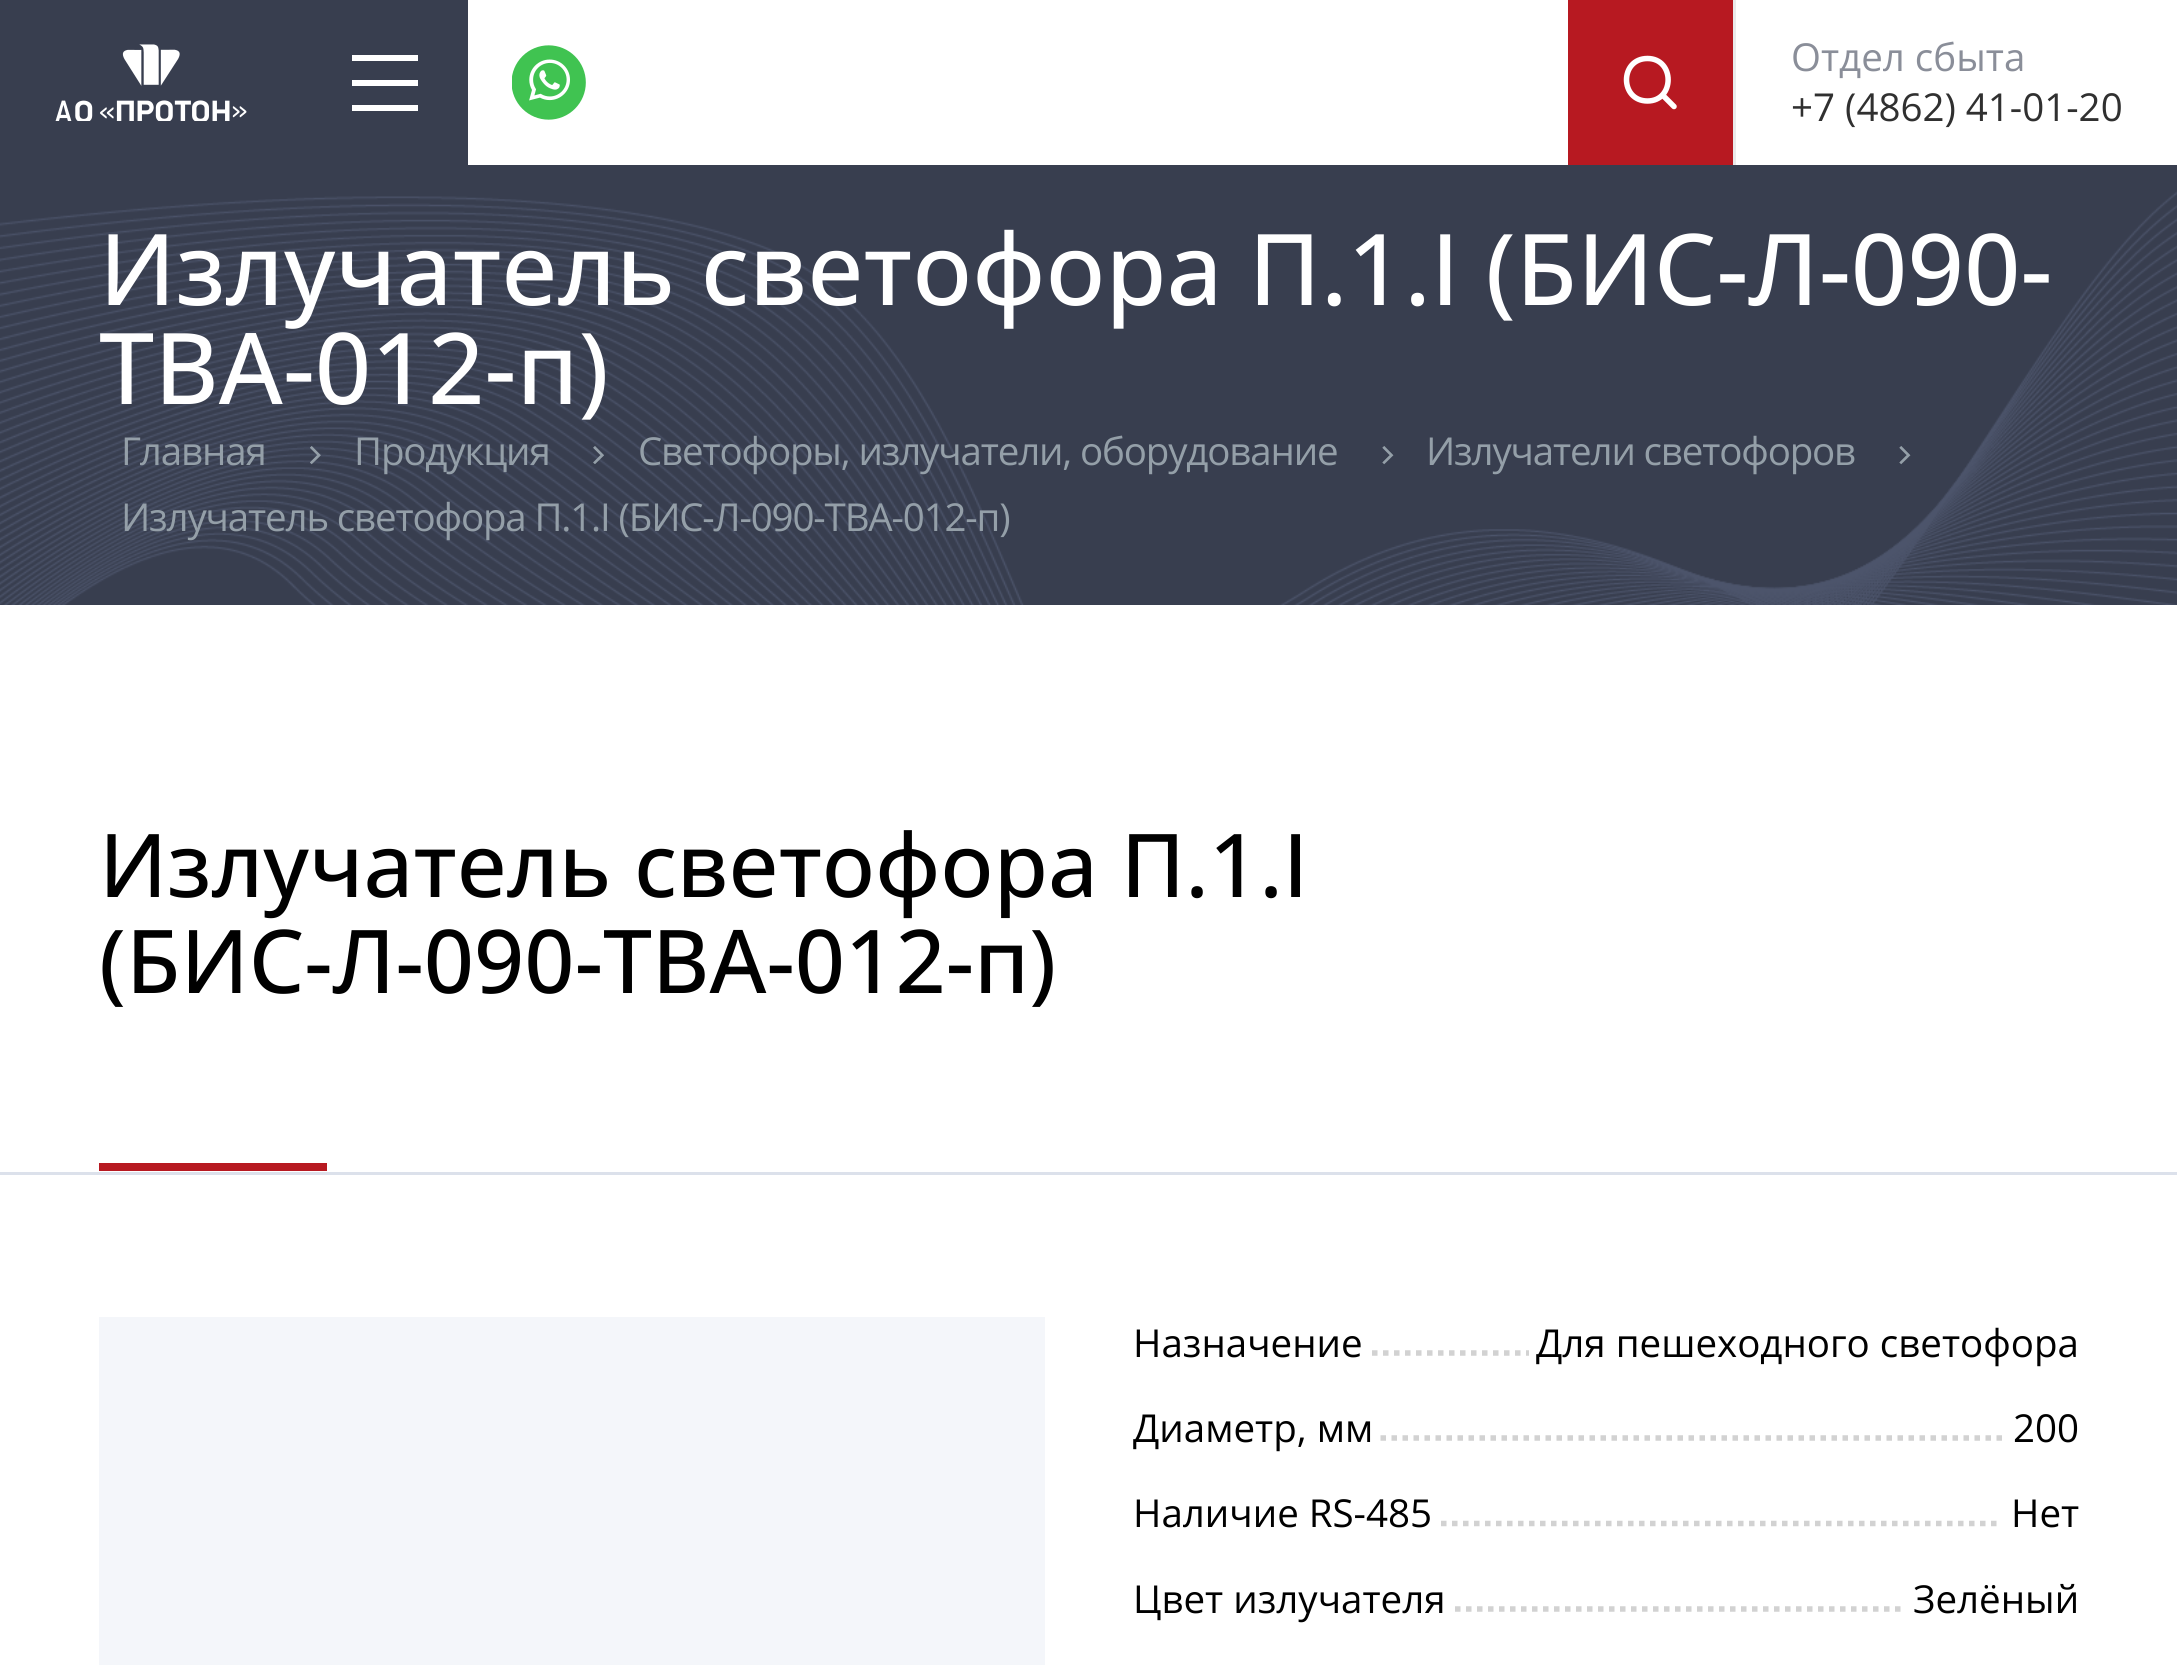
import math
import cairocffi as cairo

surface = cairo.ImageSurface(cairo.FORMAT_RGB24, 2177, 1665)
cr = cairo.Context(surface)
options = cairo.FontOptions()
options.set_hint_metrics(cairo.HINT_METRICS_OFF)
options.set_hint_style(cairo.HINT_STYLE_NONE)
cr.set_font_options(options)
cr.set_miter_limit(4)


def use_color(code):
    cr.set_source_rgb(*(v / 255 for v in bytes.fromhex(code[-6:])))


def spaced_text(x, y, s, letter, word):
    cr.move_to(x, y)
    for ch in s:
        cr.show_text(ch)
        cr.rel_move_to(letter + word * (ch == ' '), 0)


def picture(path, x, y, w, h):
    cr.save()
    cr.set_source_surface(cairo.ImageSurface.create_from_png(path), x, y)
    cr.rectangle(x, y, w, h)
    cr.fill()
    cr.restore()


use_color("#ffffff")
cr.paint()
use_color("#383e4f")
cr.rectangle(0, 0, 468, 165)
cr.fill()
picture("img1.png", 55, 44, 192, 77)
use_color("#ffffff")
cr.rectangle(352, 55, 66, 6)
cr.fill()
cr.rectangle(352, 80, 66, 6)
cr.fill()
cr.rectangle(352, 105, 66, 6)
cr.fill()
picture("img2.png", 512, 45, 74, 75)
use_color("#b71921")
cr.rectangle(1568, 0, 165, 165)
cr.fill()
cr.new_path()
cr.move_to(1647.5, 101)
cr.curve_to(1675, 101, 1675, 58.5, 1647.5, 58.5)
cr.curve_to(1619.5, 58.5, 1619.5, 101, 1647.5, 101)
cr.close_path()
cr.move_to(1674, 106.5)
cr.line_to(1662.5, 95)
use_color("#ffffff")
cr.set_line_width(5.5)
cr.set_line_cap(cairo.LINE_CAP_ROUND)
cr.set_line_join(cairo.LINE_JOIN_ROUND)
cr.stroke()
use_color("#eaeaea")
cr.rectangle(1733, 0, 3, 165)
cr.fill()
cr.select_font_face("Open Sans")
cr.set_font_size(38.5)
use_color("#8a8e99")
cr.move_to(1791, 71)
cr.show_text("Отдел сбыта")
use_color("#303030")
cr.move_to(1791, 121)
cr.show_text("+7 (4862) 41-01-20")
picture("img3.png", 0, 165, 2177, 440)
cr.select_font_face("Open Sans Medium")
cr.set_font_size(99)
use_color("#ffffff")
cr.move_to(99, 305)
cr.show_text("Излучатель светофора П.1.I (БИС-Л-090-")
cr.move_to(99, 404)
cr.show_text("ТВА-012-п)")
cr.select_font_face("Open Sans")
cr.set_font_size(38.5)
use_color("#949fa8")
spaced_text(121, 465, "Главная", -1.15, 0)
picture("img4.png", 310, 446, 11, 19)
spaced_text(354, 465, "Продукция", -1.15, 0)
picture("img5.png", 593, 446, 11, 18)
spaced_text(638, 465, "Светофоры, излучатели, оборудование", -1.15, 0)
picture("img6.png", 1382, 446, 12, 19)
spaced_text(1426, 465, "Излучатели светофоров", -1.15, 0)
picture("img6.png", 1899, 446, 12, 19)
spaced_text(121, 531, "Излучатель светофора П.1.I (БИС-Л-090-ТВА-012-п)", -1.15, 0)
use_color("#dce1eb")
cr.rectangle(0, 1172, 2177, 3)
cr.fill()
cr.select_font_face("Open Sans Medium")
cr.set_font_size(88)
use_color("#000000")
cr.move_to(99, 897)
cr.show_text("Излучатель светофора П.1.I")
cr.move_to(99, 993)
cr.show_text("(БИС-Л-090-ТВА-012-п)")
use_color("#b71921")
cr.rectangle(99, 1163, 228, 8)
cr.fill()
use_color("#f4f6fa")
cr.rectangle(99, 1317, 946, 348)
cr.fill()
cr.select_font_face("Open Sans")
cr.set_font_size(38.5)
use_color("#000000")
cr.move_to(1133, 1357)
cr.show_text("Назначение")
cr.new_path()
cr.move_to(1372, 1353)
cr.line_to(1529, 1353)
use_color("#d2d2d2")
cr.set_line_cap(cairo.LINE_CAP_BUTT)
cr.set_line_join(cairo.LINE_JOIN_MITER)
cr.set_dash([5.5, 5.5])
cr.stroke()
use_color("#000000")
cr.move_to(1536, 1357)
cr.show_text("Для пешеходного светофора")
cr.move_to(1133, 1442)
cr.show_text("Диаметр, мм")
cr.new_path()
cr.move_to(1380.5, 1438)
cr.line_to(2005, 1438)
use_color("#d2d2d2")
cr.stroke()
use_color("#000000")
cr.move_to(2013, 1442)
cr.show_text("200")
cr.move_to(1133, 1527)
cr.show_text("Наличие RS-485")
cr.new_path()
cr.move_to(1441, 1523.5)
cr.line_to(2002, 1523.5)
use_color("#d2d2d2")
cr.stroke()
use_color("#000000")
cr.move_to(2011, 1527)
cr.show_text("Нет")
cr.move_to(1133, 1613)
cr.show_text("Цвет излучателя")
cr.new_path()
cr.move_to(1455, 1609)
cr.line_to(1906, 1609)
use_color("#d2d2d2")
cr.stroke()
use_color("#000000")
cr.move_to(1913, 1613)
cr.show_text("Зелёный")
surface.write_to_png("result.png")
